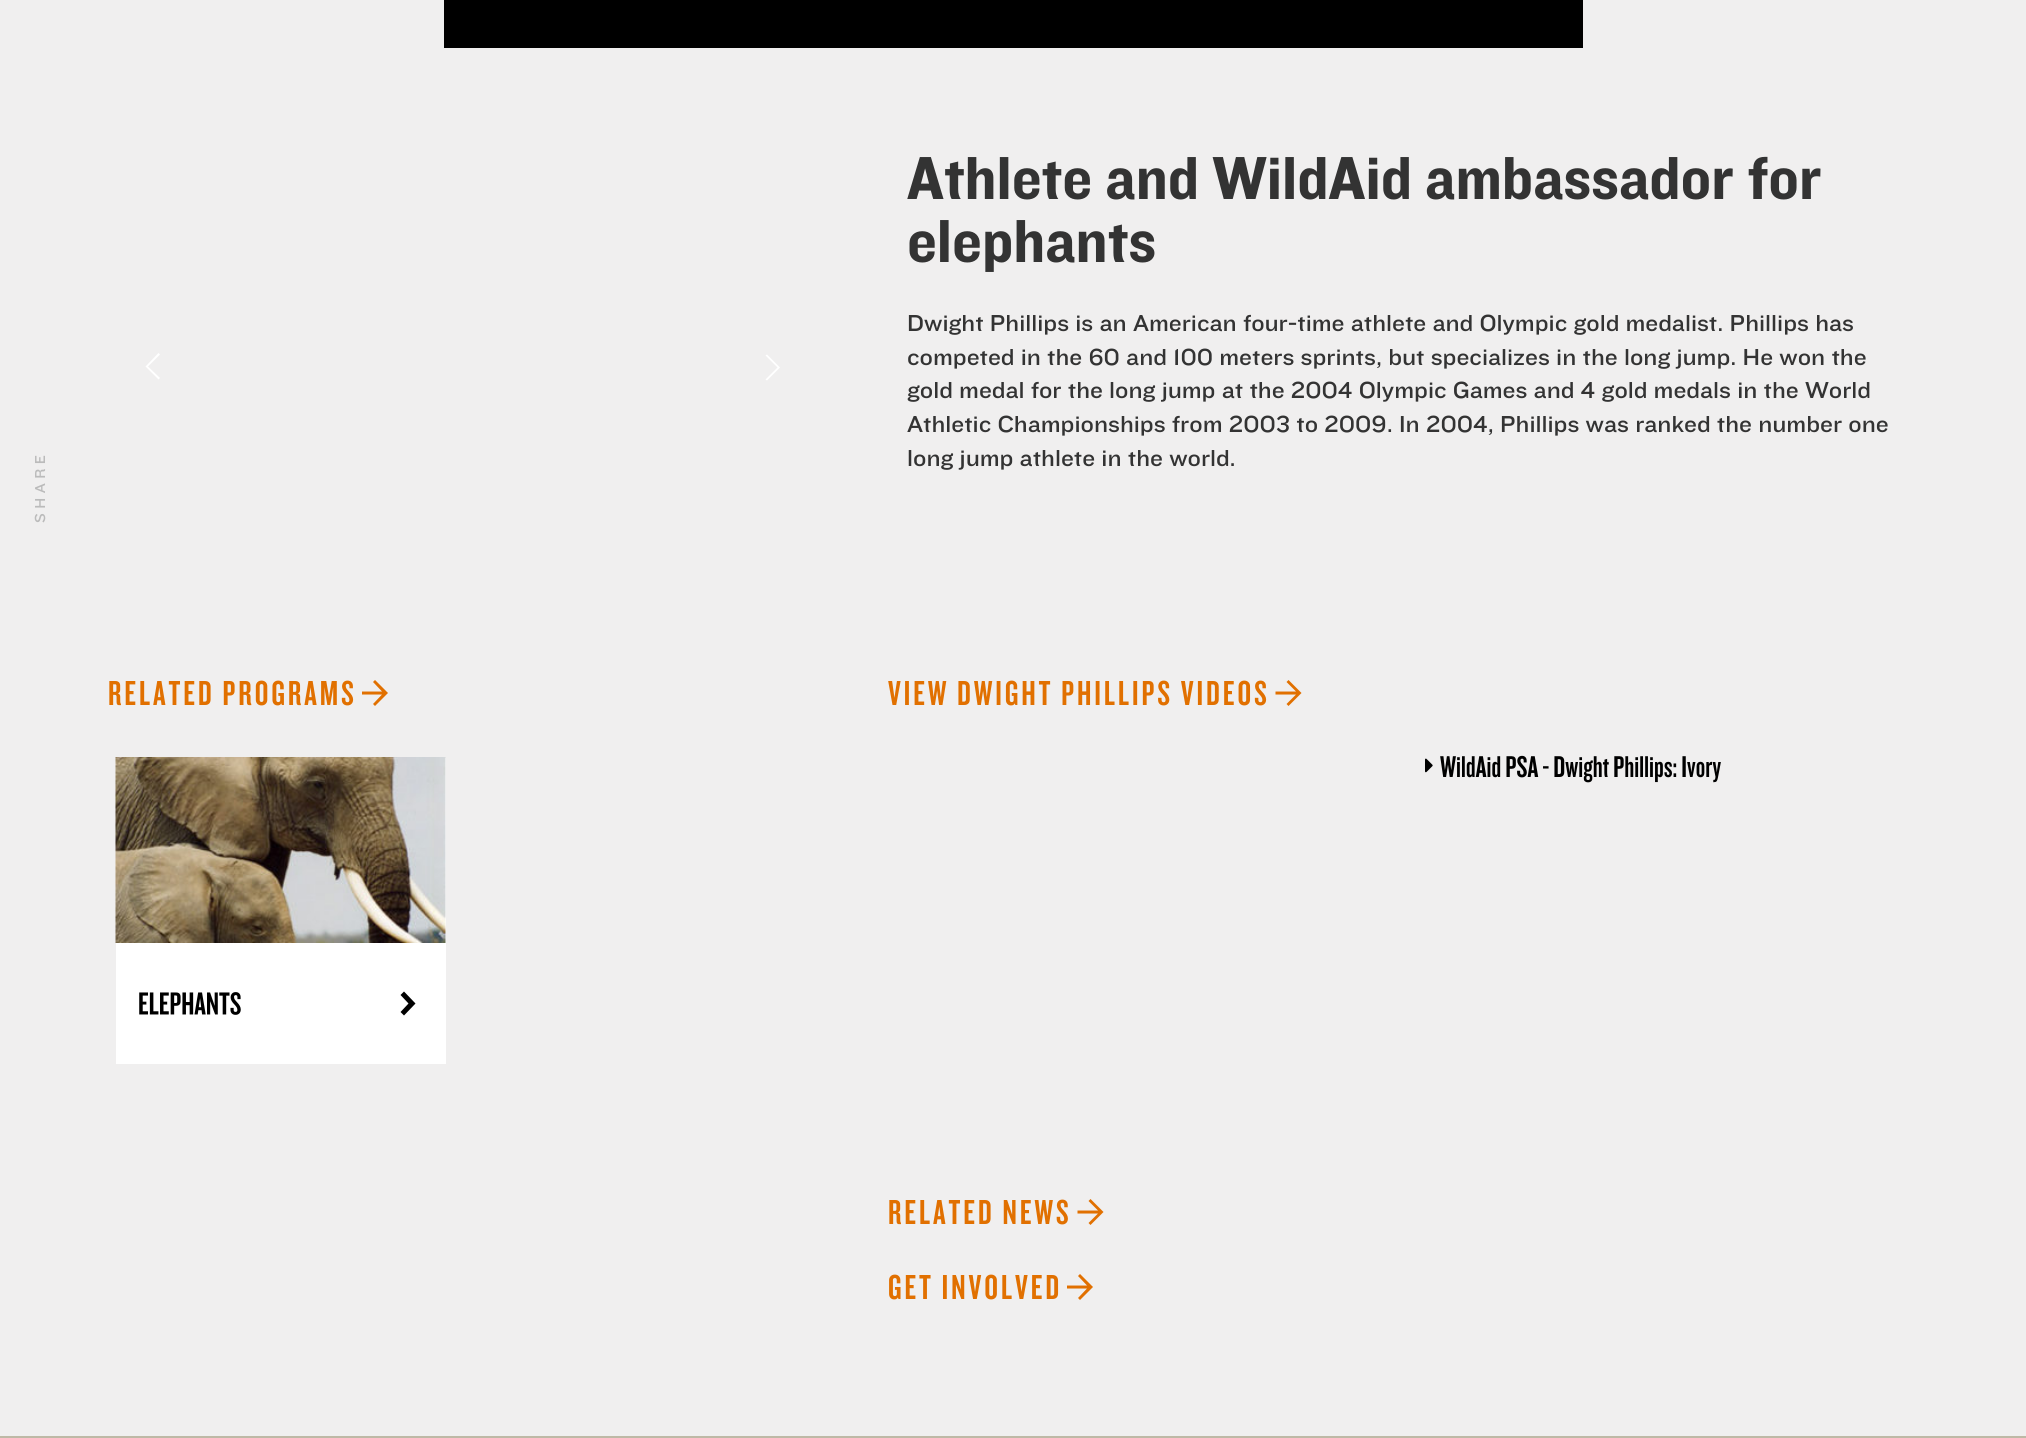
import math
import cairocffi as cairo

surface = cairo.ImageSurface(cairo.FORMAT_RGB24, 2026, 1438)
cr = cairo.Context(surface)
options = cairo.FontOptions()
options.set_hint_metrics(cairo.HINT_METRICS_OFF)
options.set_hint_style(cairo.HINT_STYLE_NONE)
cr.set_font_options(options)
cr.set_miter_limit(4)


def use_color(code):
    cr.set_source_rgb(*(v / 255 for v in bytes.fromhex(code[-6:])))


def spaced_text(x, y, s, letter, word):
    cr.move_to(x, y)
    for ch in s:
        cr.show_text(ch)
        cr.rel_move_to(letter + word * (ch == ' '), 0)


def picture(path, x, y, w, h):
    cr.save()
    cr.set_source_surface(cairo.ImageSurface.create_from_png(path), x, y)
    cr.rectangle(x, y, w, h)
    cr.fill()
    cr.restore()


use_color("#f0efef")
cr.paint()
use_color("#000000")
cr.rectangle(444, 0, 1139, 48)
cr.fill()
use_color("#ffffff")
cr.new_path()
cr.move_to(160, 354.5)
cr.line_to(158.5, 353)
cr.line_to(145.5, 366.5)
cr.line_to(158.5, 379.5)
cr.line_to(160, 378)
cr.line_to(148, 366.5)
cr.close_path()
cr.fill()
cr.new_path()
cr.move_to(765.5, 379.5)
cr.line_to(767, 380.5)
cr.line_to(780, 367.5)
cr.line_to(767, 354.5)
cr.line_to(765.5, 355.5)
cr.line_to(777.5, 367.5)
cr.close_path()
cr.fill()
cr.select_font_face("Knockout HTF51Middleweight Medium")
cr.set_font_size(63)
use_color("#333333")
cr.move_to(907, 199)
cr.show_text("Athlete and WildAid ambassador for")
cr.move_to(907, 262)
cr.show_text("elephants")
cr.select_font_face("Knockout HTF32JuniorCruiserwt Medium")
cr.set_font_size(24)
cr.move_to(907, 331)
cr.show_text("Dwight Phillips is an American four-time athlete and Olympic gold medalist. Phillips has")
cr.move_to(907, 365)
cr.show_text("competed in the 60 and 100 meters sprints, but specializes in the long jump. He won the")
cr.move_to(907, 398)
cr.show_text("gold medal for the long jump at the 2004 Olympic Games and 4 gold medals in the World")
cr.move_to(907, 432)
cr.show_text("Athletic Championships from 2003 to 2009. In 2004, Phillips was ranked the number one")
cr.move_to(907, 466)
cr.show_text("long jump athlete in the world.")
picture("img1.png", 109, 680, 245, 26)
use_color("#e17000")
cr.new_path()
cr.move_to(388, 693)
cr.line_to(375, 680)
cr.line_to(373, 682)
cr.line_to(382, 691.5)
cr.line_to(362, 691.5)
cr.line_to(362, 694.5)
cr.line_to(382, 694.5)
cr.line_to(373, 704)
cr.line_to(375, 706)
cr.close_path()
cr.fill()
use_color("#ffffff")
cr.rectangle(116, 758, 330, 306)
cr.fill()
picture("img2.png", 115, 757, 331, 186)
picture("img3.png", 139, 992, 102, 23)
use_color("#000000")
cr.new_path()
cr.move_to(404, 1015.5)
cr.line_to(400.5, 1012)
cr.line_to(408.5, 1003.5)
cr.line_to(400.5, 995)
cr.line_to(404, 991.5)
cr.line_to(415.5, 1003.5)
cr.close_path()
cr.fill()
picture("img4.png", 888, 680, 379, 26)
use_color("#e17000")
cr.new_path()
cr.move_to(1301.5, 693)
cr.line_to(1288.5, 680)
cr.line_to(1286.5, 682)
cr.line_to(1296, 691.5)
cr.line_to(1275.5, 691.5)
cr.line_to(1275.5, 694.5)
cr.line_to(1296, 694.5)
cr.line_to(1286.5, 704)
cr.line_to(1288.5, 706)
cr.close_path()
cr.fill()
picture("img5.png", 1425, 758, 8, 15)
picture("img6.png", 1440, 755, 281, 28)
picture("img7.png", 889, 1199, 179, 26)
cr.new_path()
cr.move_to(1103.5, 1212)
cr.line_to(1090.5, 1199)
cr.line_to(1088.5, 1201)
cr.line_to(1098, 1210.5)
cr.line_to(1077.5, 1210.5)
cr.line_to(1077.5, 1213.5)
cr.line_to(1098, 1213.5)
cr.line_to(1088.5, 1223)
cr.line_to(1090.5, 1225)
cr.close_path()
cr.fill()
picture("img8.png", 889, 1274, 170, 26)
cr.new_path()
cr.move_to(1093, 1287)
cr.line_to(1080, 1274)
cr.line_to(1078, 1276)
cr.line_to(1087, 1285.5)
cr.line_to(1067, 1285.5)
cr.line_to(1067, 1288.5)
cr.line_to(1087, 1288.5)
cr.line_to(1078, 1298)
cr.line_to(1080, 1300)
cr.close_path()
cr.fill()
use_color("#beb9a6")
cr.rectangle(0, 1436, 2026, 2)
cr.fill()
cr.set_font_size(15)
use_color("#bbbbbb")
cr.save()
cr.translate(45, 523)
cr.rotate(-90 * math.pi / 180)
spaced_text(0, 0, "SHARE", 4.5, 0)
cr.restore()
surface.write_to_png("result.png")
